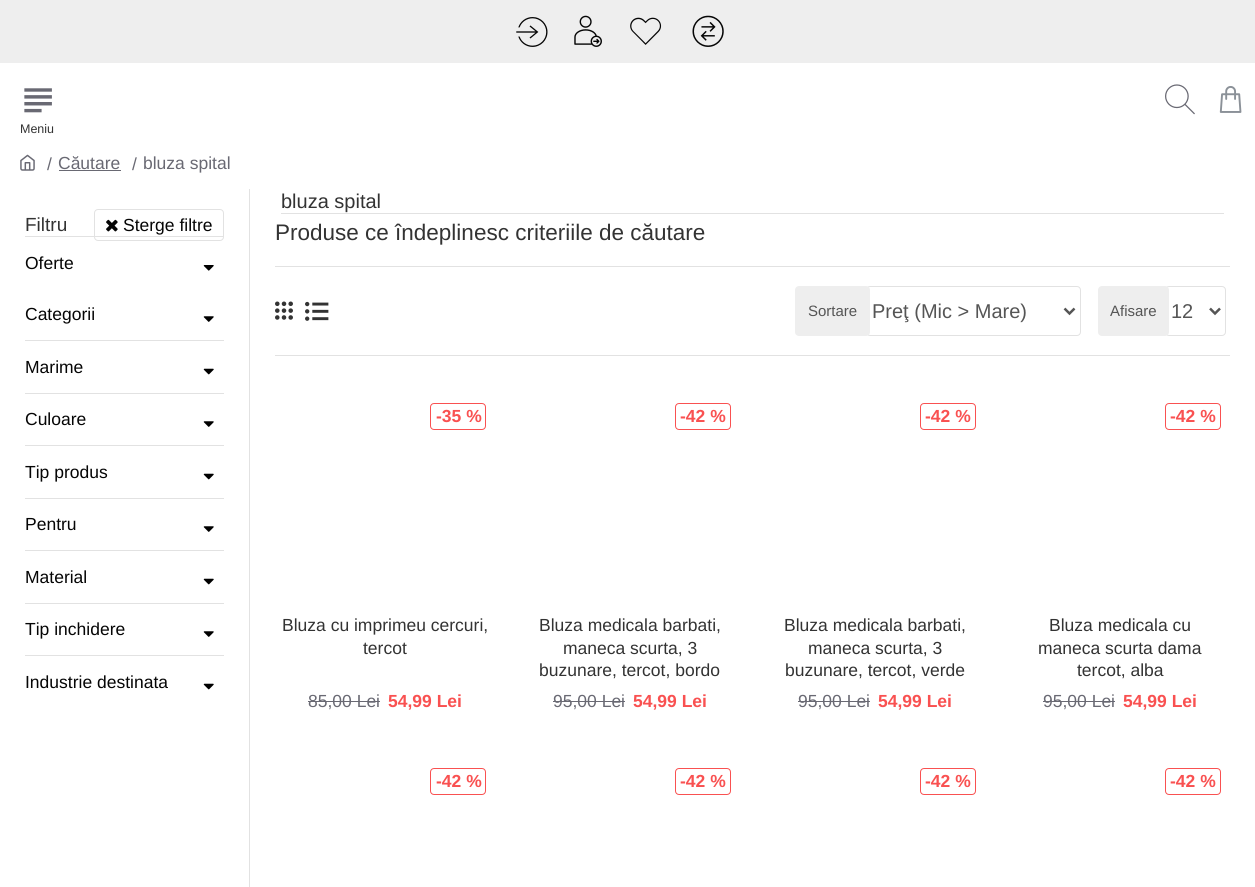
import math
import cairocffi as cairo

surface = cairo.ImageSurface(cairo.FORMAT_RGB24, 1255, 887)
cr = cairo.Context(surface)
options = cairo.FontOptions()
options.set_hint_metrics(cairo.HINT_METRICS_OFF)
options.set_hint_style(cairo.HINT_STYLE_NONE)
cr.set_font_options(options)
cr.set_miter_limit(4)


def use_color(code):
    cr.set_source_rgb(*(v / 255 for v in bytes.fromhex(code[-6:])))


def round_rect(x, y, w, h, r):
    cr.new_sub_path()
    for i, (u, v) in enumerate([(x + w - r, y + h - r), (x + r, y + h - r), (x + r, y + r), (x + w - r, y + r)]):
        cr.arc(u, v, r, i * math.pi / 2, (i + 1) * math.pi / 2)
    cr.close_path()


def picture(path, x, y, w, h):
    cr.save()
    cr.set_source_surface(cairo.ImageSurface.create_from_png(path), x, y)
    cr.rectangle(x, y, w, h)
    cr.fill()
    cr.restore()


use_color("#ffffff")
cr.paint()
use_color("#eeeeee")
cr.rectangle(0, 0, 1255, 63)
cr.fill()
picture("img1.png", 516, 17, 32, 30)
picture("img2.png", 574, 15, 28, 32)
picture("img3.png", 630, 17, 32, 28)
picture("img4.png", 692, 15, 32, 32)
picture("img5.png", 1165, 84, 30, 31)
picture("img6.png", 1219, 86, 23, 27)
picture("img7.png", 24, 88, 28, 25)
cr.select_font_face("Liberation Sans")
cr.set_font_size(12.5)
use_color("#333333")
cr.move_to(20, 133)
cr.show_text("Meniu")
picture("img8.png", 20, 154, 15, 17)
cr.set_font_size(17.5)
use_color("#696973")
cr.move_to(47, 170)
cr.show_text("/")
cr.move_to(58, 169)
cr.show_text("Căutare")
cr.rectangle(59, 170, 62, 1)
cr.fill()
cr.move_to(132, 170)
cr.show_text("/")
cr.move_to(143, 169)
cr.show_text("bluza spital")
use_color("#e2e2e2")
cr.rectangle(249, 189, 1, 698)
cr.fill()
cr.set_font_size(19)
use_color("#333333")
cr.move_to(25, 231)
cr.show_text("Filtru")
round_rect(94.5, 209.5, 129, 31, 3.5)
use_color("#e2e2e2")
cr.set_line_width(1)
cr.stroke()
picture("img9.png", 106, 219, 12, 13)
cr.set_font_size(17.5)
use_color("#050505")
cr.move_to(123, 231)
cr.show_text("Sterge filtre")
use_color("#e2e2e2")
cr.rectangle(25, 236, 199, 1)
cr.fill()
use_color("#050505")
cr.move_to(25, 269)
cr.show_text("Oferte")
picture("img10.png", 203, 265, 11, 6)
cr.move_to(25, 320)
cr.show_text("Categorii")
picture("img11.png", 203, 316, 11, 6)
use_color("#e2e2e2")
cr.rectangle(25, 340, 199, 1)
cr.fill()
use_color("#050505")
cr.move_to(25, 373)
cr.show_text("Marime")
picture("img12.png", 203, 368, 11, 7)
use_color("#e2e2e2")
cr.rectangle(25, 393, 199, 1)
cr.fill()
use_color("#050505")
cr.move_to(25, 425)
cr.show_text("Culoare")
picture("img11.png", 203, 421, 11, 6)
use_color("#e2e2e2")
cr.rectangle(25, 445, 199, 1)
cr.fill()
use_color("#050505")
cr.move_to(25, 478)
cr.show_text("Tip produs")
picture("img12.png", 203, 473, 11, 7)
use_color("#e2e2e2")
cr.rectangle(25, 498, 199, 1)
cr.fill()
use_color("#050505")
cr.move_to(25, 530)
cr.show_text("Pentru")
picture("img11.png", 203, 526, 11, 6)
use_color("#e2e2e2")
cr.rectangle(25, 550, 199, 1)
cr.fill()
use_color("#050505")
cr.move_to(25, 583)
cr.show_text("Material")
picture("img12.png", 203, 578, 11, 7)
use_color("#e2e2e2")
cr.rectangle(25, 603, 199, 1)
cr.fill()
use_color("#050505")
cr.move_to(25, 635)
cr.show_text("Tip inchidere")
picture("img11.png", 203, 631, 11, 6)
use_color("#e2e2e2")
cr.rectangle(25, 655, 199, 1)
cr.fill()
use_color("#050505")
cr.move_to(25, 688)
cr.show_text("Industrie destinata")
picture("img12.png", 203, 683, 11, 7)
use_color("#e2e2e2")
cr.rectangle(281, 213, 943, 1)
cr.fill()
cr.set_font_size(20)
use_color("#333333")
cr.move_to(281, 208)
cr.show_text("bluza spital")
cr.set_font_size(22.5)
cr.move_to(275, 240)
cr.show_text("Produse ce îndeplinesc criteriile de căutare")
use_color("#e2e2e2")
cr.rectangle(275, 266, 955, 1)
cr.fill()
cr.rectangle(275, 355, 955, 1)
cr.fill()
picture("img13.png", 275, 301, 18, 19)
picture("img14.png", 305, 301, 24, 20)
round_rect(866.5, 286.5, 214, 49, 3.5)
cr.stroke()
use_color("#eeeeee")
round_rect(795, 286, 75, 50, 4)
cr.fill()
cr.set_font_size(15)
use_color("#555555")
cr.move_to(808, 316)
cr.show_text("Sortare")
cr.new_path()
cr.move_to(1064.5, 308.5)
cr.line_to(1069.5, 313.5)
cr.line_to(1074.5, 308.5)
cr.set_line_width(2.5)
cr.stroke()
cr.set_font_size(20)
cr.move_to(872, 318)
cr.show_text("Preţ (Mic > Mare)")
round_rect(1165.5, 286.5, 60, 49, 3.5)
use_color("#e2e2e2")
cr.set_line_width(1)
cr.stroke()
use_color("#eeeeee")
round_rect(1098, 286, 71, 50, 4)
cr.fill()
cr.set_font_size(15)
use_color("#555555")
cr.move_to(1110, 316)
cr.show_text("Afisare")
cr.new_path()
cr.move_to(1210, 308.5)
cr.line_to(1215, 313.5)
cr.line_to(1220, 308.5)
cr.set_line_width(2.5)
cr.stroke()
cr.set_font_size(20)
cr.move_to(1171, 318)
cr.show_text("12")
round_rect(430.5, 403.5, 55, 26, 3.5)
use_color("#f95151")
cr.set_line_width(1)
cr.stroke()
cr.select_font_face("Liberation Sans", cairo.FONT_SLANT_NORMAL, cairo.FONT_WEIGHT_BOLD)
cr.set_font_size(17.5)
cr.move_to(436, 422)
cr.show_text("-35 %")
cr.select_font_face("Liberation Sans")
use_color("#333333")
cr.move_to(282, 631)
cr.show_text("Bluza cu imprimeu cercuri,")
cr.move_to(363, 654)
cr.show_text("tercot")
use_color("#696973")
cr.move_to(308, 707)
cr.show_text("85,00 Lei")
cr.rectangle(308, 701, 72, 1)
cr.fill()
cr.select_font_face("Liberation Sans", cairo.FONT_SLANT_NORMAL, cairo.FONT_WEIGHT_BOLD)
use_color("#f95151")
cr.move_to(388, 707)
cr.show_text("54,99 Lei")
round_rect(675.5, 403.5, 55, 26, 3.5)
cr.stroke()
cr.move_to(680, 422)
cr.show_text("-42 %")
cr.select_font_face("Liberation Sans")
use_color("#333333")
cr.move_to(539, 631)
cr.show_text("Bluza medicala barbati,")
cr.move_to(563, 654)
cr.show_text("maneca scurta, 3")
cr.move_to(539, 676)
cr.show_text("buzunare, tercot, bordo")
use_color("#696973")
cr.move_to(553, 707)
cr.show_text("95,00 Lei")
cr.rectangle(553, 701, 72, 1)
cr.fill()
cr.select_font_face("Liberation Sans", cairo.FONT_SLANT_NORMAL, cairo.FONT_WEIGHT_BOLD)
use_color("#f95151")
cr.move_to(633, 707)
cr.show_text("54,99 Lei")
round_rect(920.5, 403.5, 55, 26, 3.5)
cr.stroke()
cr.move_to(925, 422)
cr.show_text("-42 %")
cr.select_font_face("Liberation Sans")
use_color("#333333")
cr.move_to(784, 631)
cr.show_text("Bluza medicala barbati,")
cr.move_to(808, 654)
cr.show_text("maneca scurta, 3")
cr.move_to(785, 676)
cr.show_text("buzunare, tercot, verde")
use_color("#696973")
cr.move_to(798, 707)
cr.show_text("95,00 Lei")
cr.rectangle(798, 701, 72, 1)
cr.fill()
cr.select_font_face("Liberation Sans", cairo.FONT_SLANT_NORMAL, cairo.FONT_WEIGHT_BOLD)
use_color("#f95151")
cr.move_to(878, 707)
cr.show_text("54,99 Lei")
round_rect(1165.5, 403.5, 55, 26, 3.5)
cr.stroke()
cr.move_to(1170, 422)
cr.show_text("-42 %")
cr.select_font_face("Liberation Sans")
use_color("#333333")
cr.move_to(1049, 631)
cr.show_text("Bluza medicala cu")
cr.move_to(1038, 654)
cr.show_text("maneca scurta dama")
cr.move_to(1077, 676)
cr.show_text("tercot, alba")
use_color("#696973")
cr.move_to(1043, 707)
cr.show_text("95,00 Lei")
cr.rectangle(1043, 701, 72, 1)
cr.fill()
cr.select_font_face("Liberation Sans", cairo.FONT_SLANT_NORMAL, cairo.FONT_WEIGHT_BOLD)
use_color("#f95151")
cr.move_to(1123, 707)
cr.show_text("54,99 Lei")
round_rect(430.5, 768.5, 55, 26, 3.5)
cr.stroke()
cr.move_to(436, 787)
cr.show_text("-42 %")
round_rect(675.5, 768.5, 55, 26, 3.5)
cr.stroke()
cr.move_to(680, 787)
cr.show_text("-42 %")
round_rect(920.5, 768.5, 55, 26, 3.5)
cr.stroke()
cr.move_to(925, 787)
cr.show_text("-42 %")
round_rect(1165.5, 768.5, 55, 26, 3.5)
cr.stroke()
cr.move_to(1170, 787)
cr.show_text("-42 %")
surface.write_to_png("result.png")
